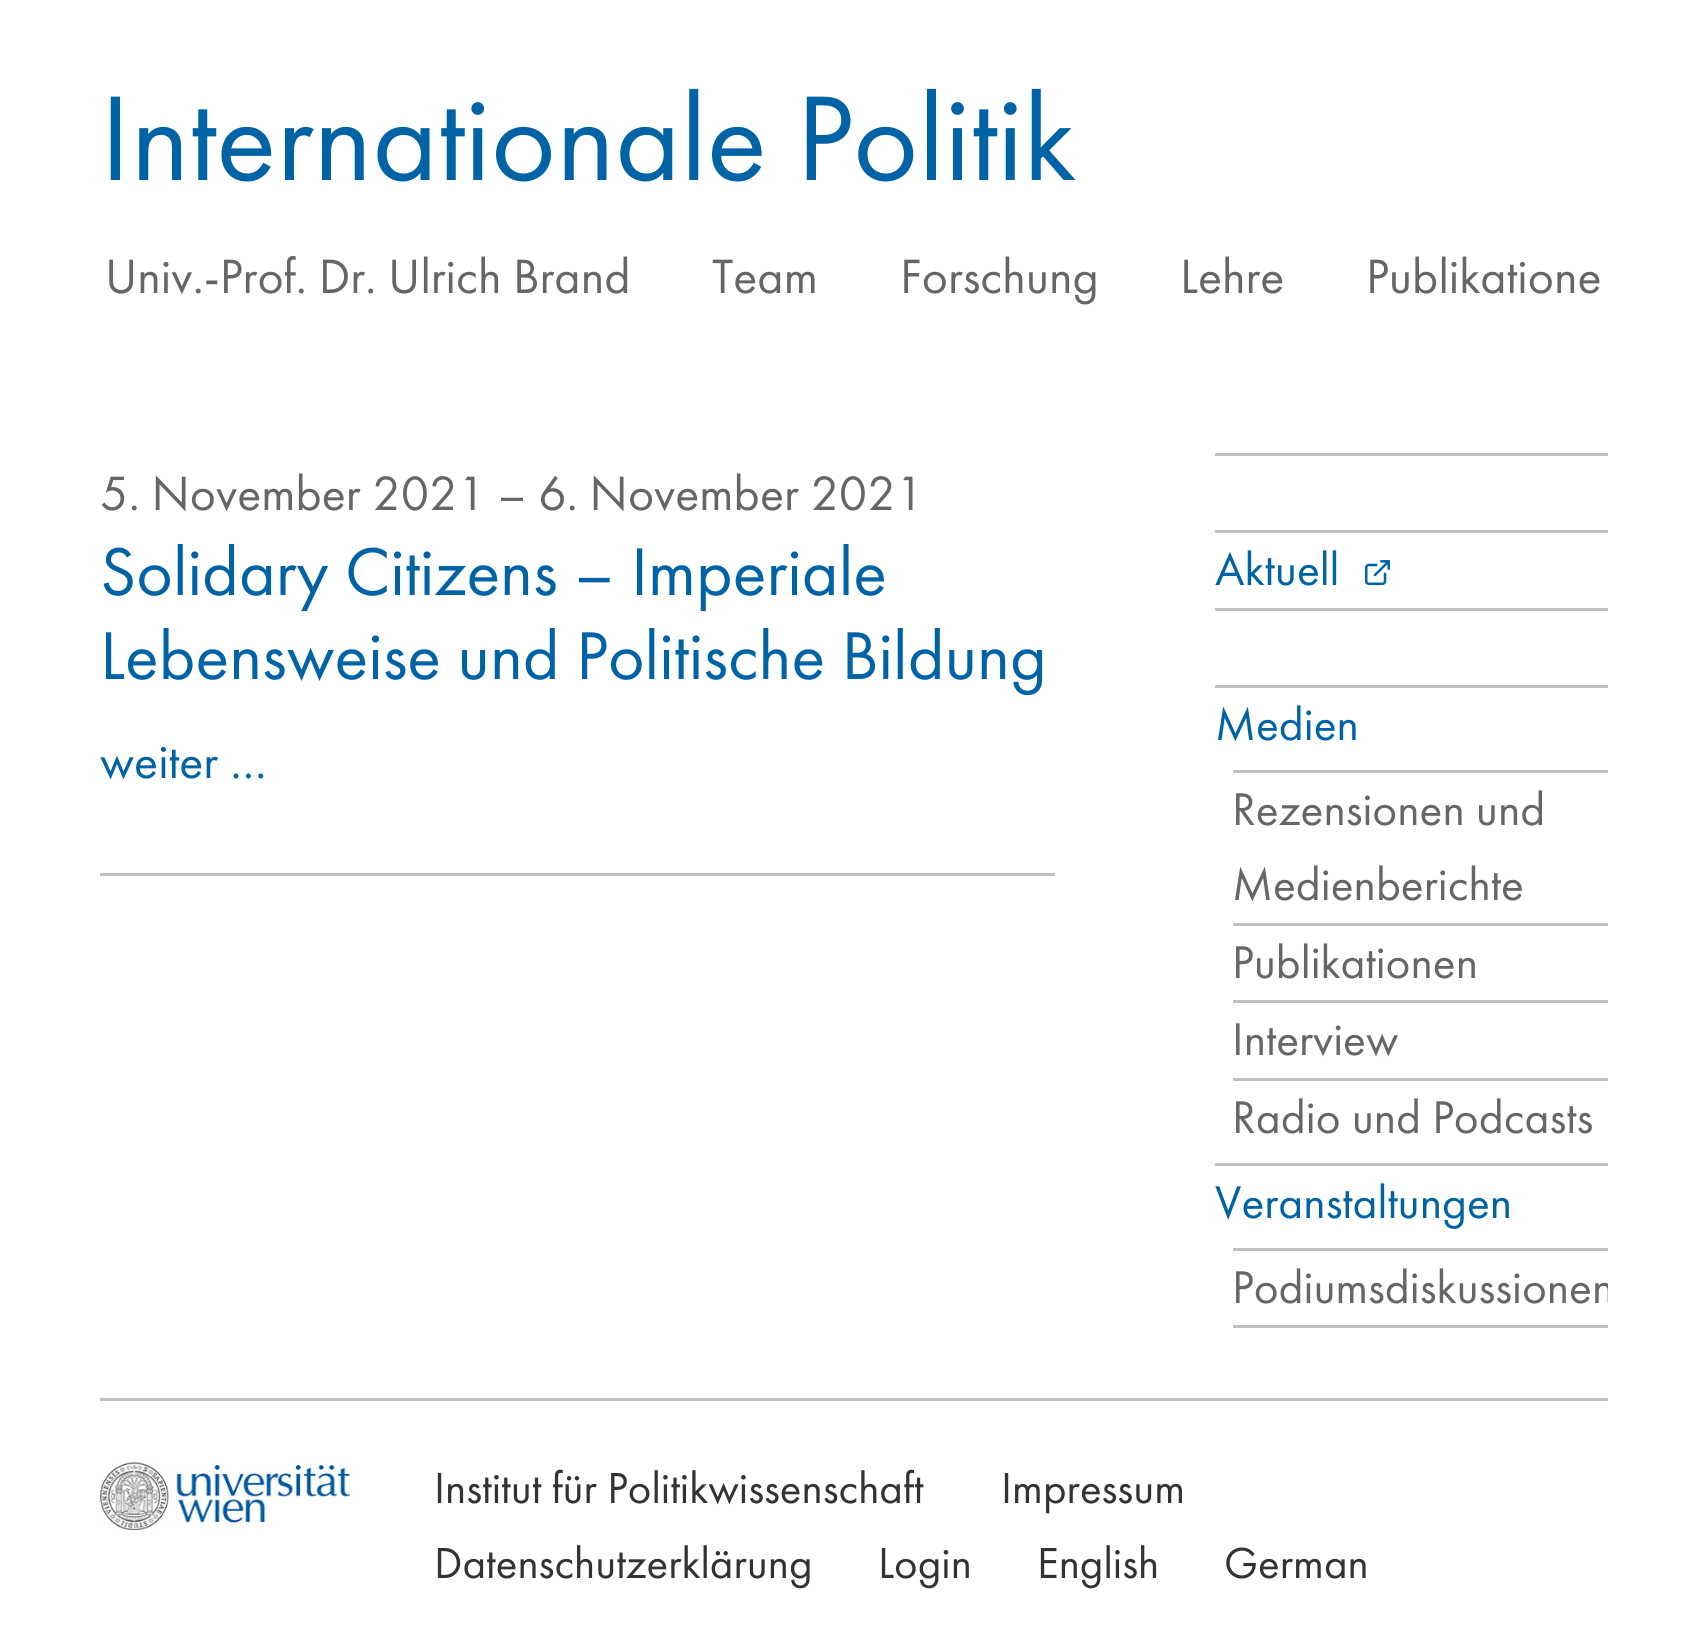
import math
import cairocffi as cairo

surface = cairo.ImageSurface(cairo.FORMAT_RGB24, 1707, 1645)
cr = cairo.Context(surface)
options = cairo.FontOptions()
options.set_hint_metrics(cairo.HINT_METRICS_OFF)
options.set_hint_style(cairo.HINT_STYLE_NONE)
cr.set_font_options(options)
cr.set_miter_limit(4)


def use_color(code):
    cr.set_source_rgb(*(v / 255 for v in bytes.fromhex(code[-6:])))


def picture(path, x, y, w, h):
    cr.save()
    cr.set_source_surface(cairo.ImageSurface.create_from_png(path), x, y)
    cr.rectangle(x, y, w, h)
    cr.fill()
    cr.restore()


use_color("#ffffff")
cr.paint()
cr.select_font_face("Futura PT")
cr.set_font_size(125)
use_color("#0063a6")
cr.move_to(100, 180)
cr.show_text("Internationale Politik")
cr.set_font_size(50)
use_color("#666666")
cr.move_to(105, 293)
cr.show_text("Univ.-Prof. Dr. Ulrich Brand")
cr.move_to(712, 293)
cr.show_text("Team")
cr.move_to(900, 293)
cr.show_text("Forschung")
cr.move_to(1180, 293)
cr.show_text("Lehre")
cr.move_to(1366, 293)
cr.show_text("Publikatione")
use_color("#c0c0c0")
cr.rectangle(100, 873, 955, 3)
cr.fill()
use_color("#666666")
cr.move_to(100, 510)
cr.show_text("5. November 2021 – 6. November 2021")
cr.set_font_size(70)
use_color("#0063a6")
cr.move_to(100, 595)
cr.show_text("Solidary Citizens – Imperiale")
cr.move_to(100, 679)
cr.show_text("Lebensweise und Politische Bildung")
cr.set_font_size(50)
cr.move_to(100, 778)
cr.show_text("weiter …")
use_color("#c0c0c0")
cr.rectangle(1215, 453, 393, 3)
cr.fill()
cr.rectangle(1215, 530, 393, 3)
cr.fill()
cr.rectangle(1215, 608, 393, 3)
cr.fill()
cr.set_font_size(47.5)
use_color("#0063a6")
cr.move_to(1215, 585)
cr.show_text("Aktuell")
picture("img1.png", 1365, 560, 25, 25)
use_color("#c0c0c0")
cr.rectangle(1215, 685, 393, 3)
cr.fill()
use_color("#0063a6")
cr.move_to(1215, 740)
cr.show_text("Medien")
use_color("#c0c0c0")
cr.rectangle(1233, 770, 375, 3)
cr.fill()
use_color("#666666")
cr.move_to(1232, 825)
cr.show_text("Rezensionen und")
cr.move_to(1232, 900)
cr.show_text("Medienberichte")
use_color("#c0c0c0")
cr.rectangle(1233, 923, 375, 3)
cr.fill()
use_color("#666666")
cr.move_to(1232, 978)
cr.show_text("Publikationen")
use_color("#c0c0c0")
cr.rectangle(1233, 1000, 375, 3)
cr.fill()
use_color("#666666")
cr.move_to(1232, 1055)
cr.show_text("Interview")
use_color("#c0c0c0")
cr.rectangle(1233, 1078, 375, 3)
cr.fill()
use_color("#666666")
cr.move_to(1232, 1133)
cr.show_text("Radio und Podcasts")
use_color("#c0c0c0")
cr.rectangle(1215, 1163, 393, 3)
cr.fill()
use_color("#0063a6")
cr.move_to(1215, 1218)
cr.show_text("Veranstaltungen")
use_color("#c0c0c0")
cr.rectangle(1233, 1248, 375, 3)
cr.fill()
cr.save()
cr.rectangle(1215, 78, 393, 1490)
cr.clip()
use_color("#666666")
cr.move_to(1232, 1303)
cr.show_text("Podiumsdiskussionen")
cr.restore()
cr.rectangle(1233, 1325, 375, 3)
cr.fill()
cr.rectangle(100, 1398, 1508, 3)
cr.fill()
picture("img2.png", 100, 1462, 250, 68)
cr.set_font_size(45)
use_color("#333333")
cr.move_to(434, 1503)
cr.show_text("Institut für Politikwissenschaft")
cr.move_to(1001, 1503)
cr.show_text("Impressum")
cr.move_to(434, 1578)
cr.show_text("Datenschutzerklärung")
cr.move_to(878, 1578)
cr.show_text("Login")
cr.move_to(1037, 1578)
cr.show_text("English")
cr.move_to(1224, 1578)
cr.show_text("German")
surface.write_to_png("result.png")
